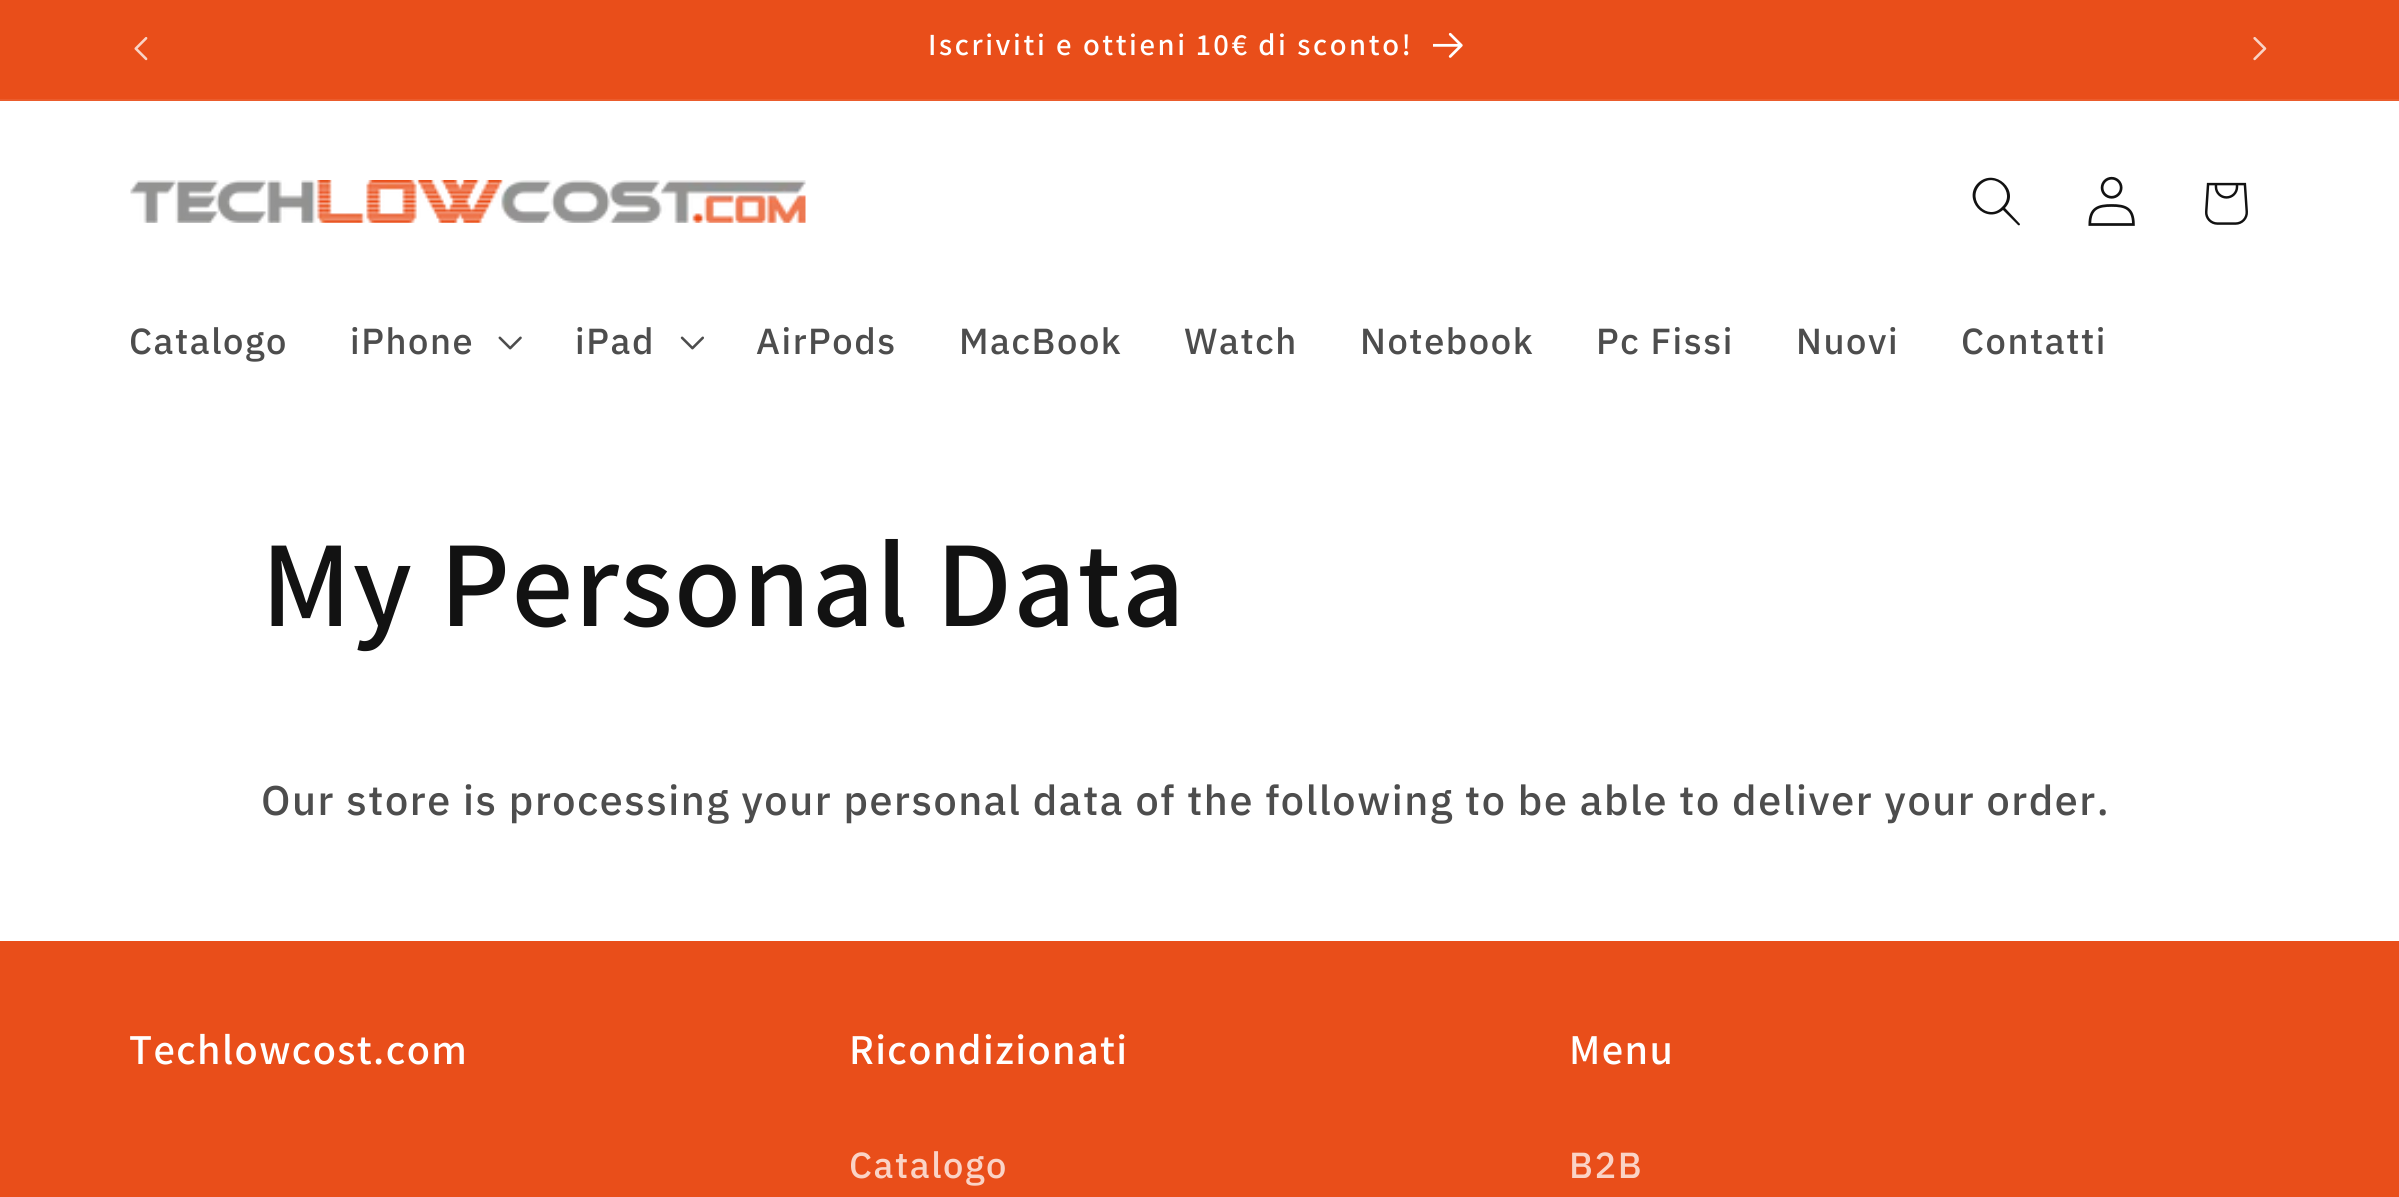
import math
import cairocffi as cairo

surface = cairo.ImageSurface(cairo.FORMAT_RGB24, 2399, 1197)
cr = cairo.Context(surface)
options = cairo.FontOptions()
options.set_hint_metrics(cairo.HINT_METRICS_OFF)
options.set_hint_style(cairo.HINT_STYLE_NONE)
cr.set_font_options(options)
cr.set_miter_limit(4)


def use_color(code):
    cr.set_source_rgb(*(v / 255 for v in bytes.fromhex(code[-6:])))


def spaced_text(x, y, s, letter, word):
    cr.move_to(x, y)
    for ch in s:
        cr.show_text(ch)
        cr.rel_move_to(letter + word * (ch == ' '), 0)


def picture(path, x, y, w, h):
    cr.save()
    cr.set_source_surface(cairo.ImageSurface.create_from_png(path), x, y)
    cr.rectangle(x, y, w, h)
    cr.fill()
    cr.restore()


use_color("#ffffff")
cr.paint()
use_color("#e94e1a")
cr.rectangle(0, 0, 2399, 99)
cr.fill()
use_color("#eb5c2c")
cr.rectangle(0, 99, 2399, 2)
cr.fill()
picture("img1.png", 134, 37, 14, 24)
cr.select_font_face("Assistant SemiBold")
cr.set_font_size(30.75)
use_color("#ffffff")
spaced_text(928, 55, "Iscriviti e ottieni 10€ di sconto!", 2.6, 0)
picture("img2.png", 1433, 32, 30, 26)
picture("img3.png", 2253, 37, 14, 24)
picture("img4.png", 130, 180, 676, 43)
use_color("#121212")
cr.set_fill_rule(cairo.FILL_RULE_EVEN_ODD)
cr.new_path()
cr.move_to(2002, 207)
cr.curve_to(1988, 222, 1966, 200, 1980, 185)
cr.curve_to(1995, 170, 2017, 193, 2002, 207)
cr.move_to(2003, 210)
cr.curve_to(1985, 225, 1962, 199, 1978, 183)
cr.curve_to(1995, 167, 2021, 191, 2005, 208)
cr.line_to(2020, 224)
cr.curve_to(2020, 225, 2019, 226, 2018, 225)
cr.close_path()
cr.fill()
picture("img5.png", 2088, 176, 47, 50)
picture("img6.png", 2205, 182, 43, 43)
cr.select_font_face("IBM Plex Sans Medium")
cr.set_font_size(36.25)
use_color("#4d4d4d")
spaced_text(129, 354, "Catalogo", 1.55, 0)
spaced_text(350, 354, "iPhone", 1.55, 0)
picture("img7.png", 498, 336, 24, 14)
spaced_text(575, 354, "iPad", 1.55, 0)
picture("img8.png", 680, 336, 24, 14)
spaced_text(756, 354, "AirPods", 1.55, 0)
spaced_text(959, 354, "MacBook", 1.55, 0)
spaced_text(1184, 354, "Watch", 1.55, 0)
spaced_text(1360, 354, "Notebook", 1.55, 0)
spaced_text(1596, 354, "Pc Fissi", 1.55, 0)
spaced_text(1796, 354, "Nuovi", 1.55, 0)
spaced_text(1961, 354, "Contatti", 1.55, 0)
cr.select_font_face("Assistant SemiBold")
cr.set_font_size(122.75)
use_color("#121212")
spaced_text(261, 626, "My Personal Data", 1.4, 0)
cr.select_font_face("IBM Plex Sans Medium")
cr.set_font_size(41.4)
use_color("#4d4d4d")
spaced_text(261, 815, "Our store is processing your personal data of the following to be able to deliver your order.", 1.55, 0)
use_color("#e94e1a")
cr.rectangle(0, 941, 2399, 256)
cr.fill()
cr.select_font_face("Assistant SemiBold")
cr.set_font_size(42.5)
use_color("#ffffff")
spaced_text(129, 1064, "Techlowcost.com", 1.4, 0)
spaced_text(849, 1064, "Ricondizionati", 1.4, 0)
cr.select_font_face("IBM Plex Sans Medium")
cr.set_font_size(36.25)
use_color("#fad3c6")
spaced_text(849, 1178, "Catalogo", 1.55, 0)
cr.select_font_face("Assistant SemiBold")
cr.set_font_size(42.5)
use_color("#ffffff")
spaced_text(1569, 1064, "Menu", 1.4, 0)
cr.select_font_face("IBM Plex Sans Medium")
cr.set_font_size(36.25)
use_color("#fad3c6")
spaced_text(1569, 1178, "B2B", 1.55, 0)
surface.write_to_png("result.png")
